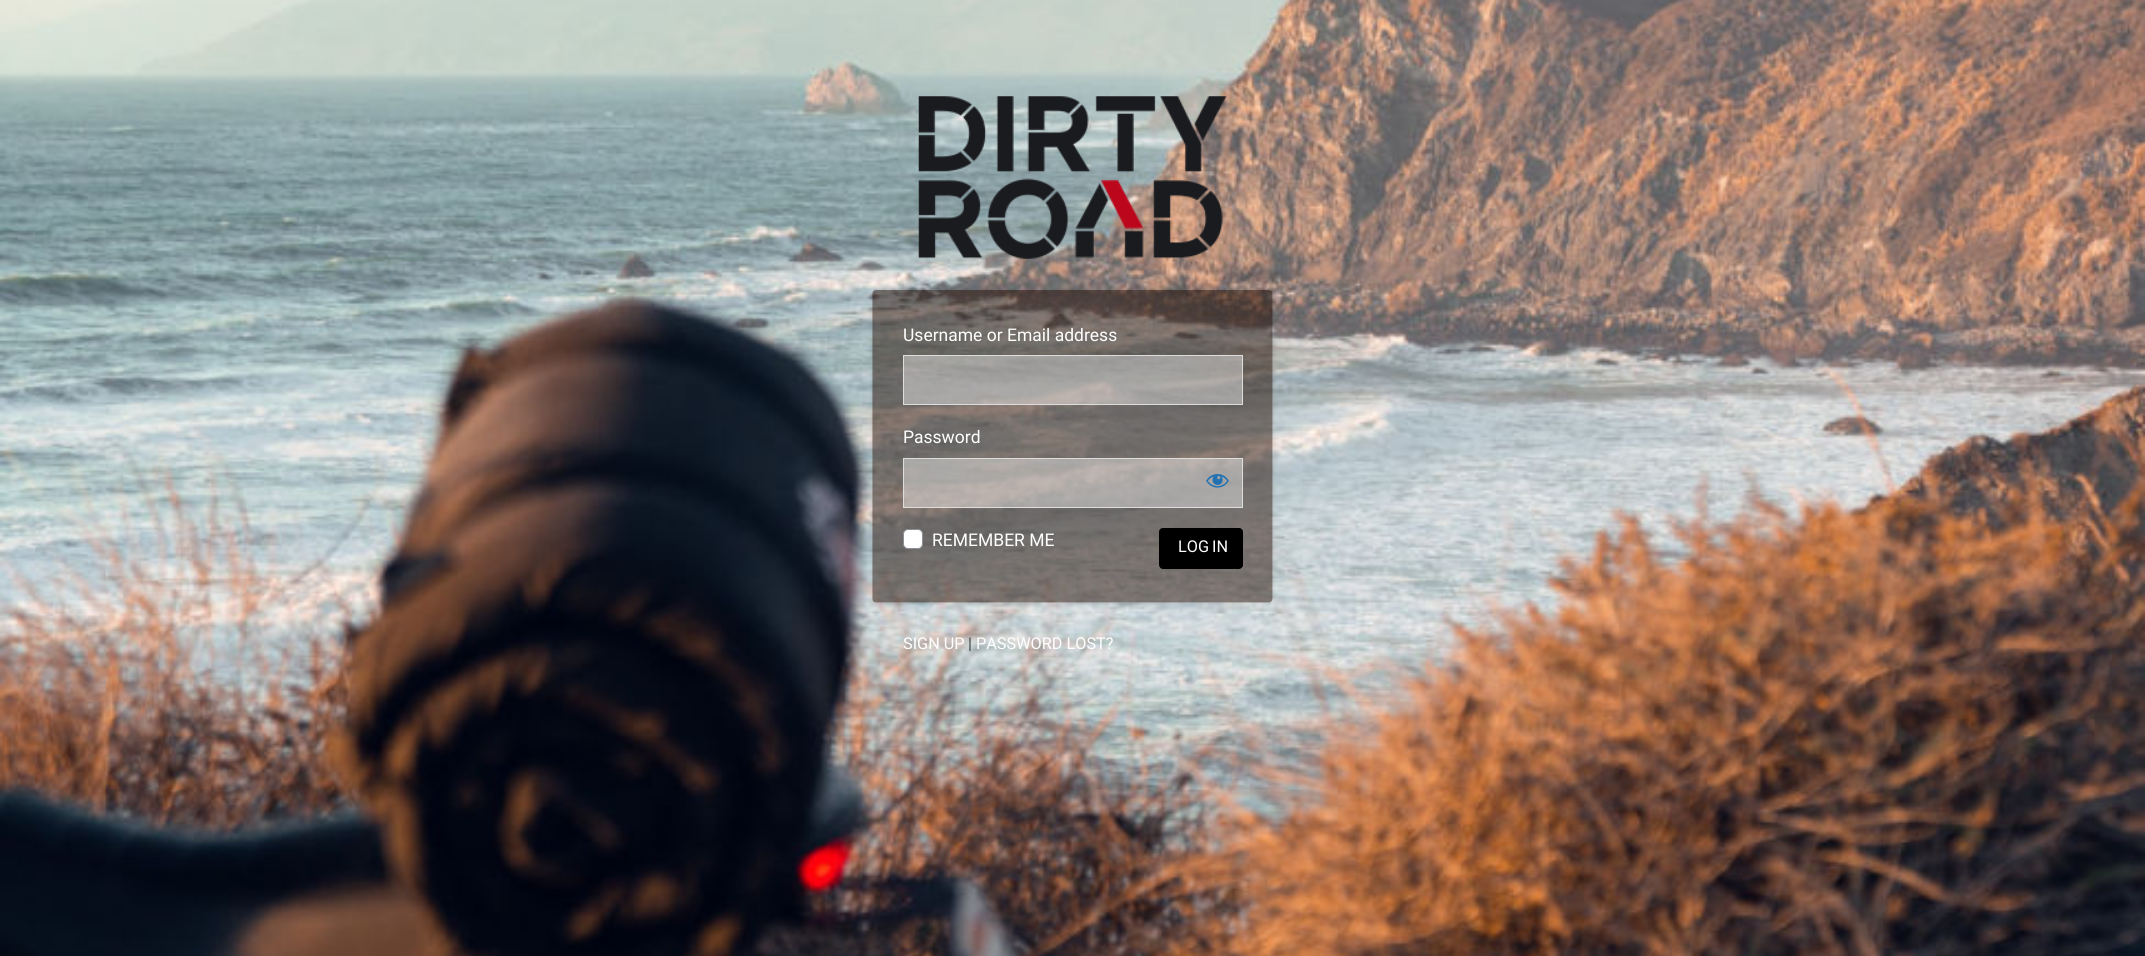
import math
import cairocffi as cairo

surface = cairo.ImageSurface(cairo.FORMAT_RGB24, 2145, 956)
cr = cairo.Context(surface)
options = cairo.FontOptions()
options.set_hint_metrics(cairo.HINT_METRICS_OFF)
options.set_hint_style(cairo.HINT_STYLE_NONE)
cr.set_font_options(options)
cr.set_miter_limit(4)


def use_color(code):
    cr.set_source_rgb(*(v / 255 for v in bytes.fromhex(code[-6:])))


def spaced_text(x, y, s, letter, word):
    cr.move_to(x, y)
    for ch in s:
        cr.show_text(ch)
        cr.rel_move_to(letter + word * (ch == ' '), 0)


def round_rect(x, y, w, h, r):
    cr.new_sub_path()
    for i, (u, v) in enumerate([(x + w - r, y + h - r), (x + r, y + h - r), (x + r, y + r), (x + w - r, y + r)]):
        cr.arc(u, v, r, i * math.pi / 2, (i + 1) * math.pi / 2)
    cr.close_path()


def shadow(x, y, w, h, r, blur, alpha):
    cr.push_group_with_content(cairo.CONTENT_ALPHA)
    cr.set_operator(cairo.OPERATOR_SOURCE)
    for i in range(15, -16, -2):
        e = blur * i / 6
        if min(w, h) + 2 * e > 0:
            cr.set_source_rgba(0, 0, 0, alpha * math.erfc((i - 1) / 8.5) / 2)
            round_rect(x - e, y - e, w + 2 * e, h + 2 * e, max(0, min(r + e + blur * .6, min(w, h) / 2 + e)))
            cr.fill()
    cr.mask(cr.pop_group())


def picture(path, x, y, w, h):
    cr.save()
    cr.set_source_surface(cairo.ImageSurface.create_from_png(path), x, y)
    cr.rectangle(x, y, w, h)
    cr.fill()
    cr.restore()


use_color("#ffffff")
cr.paint()
picture("img1.png", 0, 0, 2145, 956)
picture("img2.png", 918, 96, 309, 163)
cr.save()
cr.set_fill_rule(cairo.FILL_RULE_EVEN_ODD)
cr.new_path()
cr.move_to(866, 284)
cr.line_to(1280, 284)
cr.line_to(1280, 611)
cr.line_to(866, 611)
cr.close_path()
cr.move_to(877, 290)
cr.line_to(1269, 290)
cr.curve_to(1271, 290, 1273, 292, 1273, 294)
cr.line_to(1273, 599)
cr.curve_to(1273, 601, 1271, 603, 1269, 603)
cr.line_to(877, 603)
cr.curve_to(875, 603, 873, 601, 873, 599)
cr.line_to(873, 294)
cr.curve_to(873, 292, 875, 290, 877, 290)
cr.close_path()
cr.clip()
use_color("#000000")
shadow(873, 291, 400, 313, 4, 2, 0.13)
cr.restore()
picture("img3.png", 872, 290, 401, 313)
cr.select_font_face("Roboto")
cr.set_font_size(17.5)
use_color("#ffffff")
cr.move_to(903, 341)
cr.show_text("Username or Email address")
cr.set_source_rgba(0.984, 0.984, 0.984, 0.42)
cr.rectangle(903.5, 355.5, 339, 49)
cr.fill_preserve()
use_color("#dddddd")
cr.set_line_width(1)
cr.stroke()
use_color("#ffffff")
cr.move_to(903, 443)
cr.show_text("Password")
cr.set_source_rgba(0.984, 0.984, 0.984, 0.42)
cr.rectangle(903.5, 458.5, 339, 49)
cr.fill_preserve()
use_color("#dddddd")
cr.stroke()
picture("img4.png", 1206, 474, 23, 14)
use_color("#ffffff")
round_rect(903.5, 529.5, 19, 19, 4.5)
cr.fill_preserve()
use_color("#8c8f94")
cr.stroke()
use_color("#ffffff")
cr.move_to(932, 546)
cr.show_text("REMEMBER ME")
use_color("#000000")
cr.new_path()
cr.move_to(1159, 565)
cr.curve_to(1159, 567, 1161, 569, 1163, 569)
cr.line_to(1239, 569)
cr.curve_to(1241, 569, 1243, 567, 1243, 565)
cr.line_to(1243, 533)
cr.line_to(1242, 531)
cr.line_to(1242, 553)
cr.curve_to(1242, 570, 1244, 568, 1226, 568)
cr.line_to(1201, 568)
cr.curve_to(1196, 568, 1164, 568, 1161, 567)
cr.close_path()
cr.fill()
round_rect(1159.5, 528.5, 83, 39, 3.5)
cr.fill_preserve()
cr.stroke()
cr.set_font_size(16.25)
use_color("#ffffff")
spaced_text(1178, 552, "LOG IN", 0, -1)
cr.move_to(903, 649)
cr.show_text("SIGN UP")
use_color("#3c434a")
cr.move_to(968, 649)
cr.show_text("|")
use_color("#ffffff")
cr.move_to(976, 649)
cr.show_text("PASSWORD LOST?")
surface.write_to_png("result.png")
